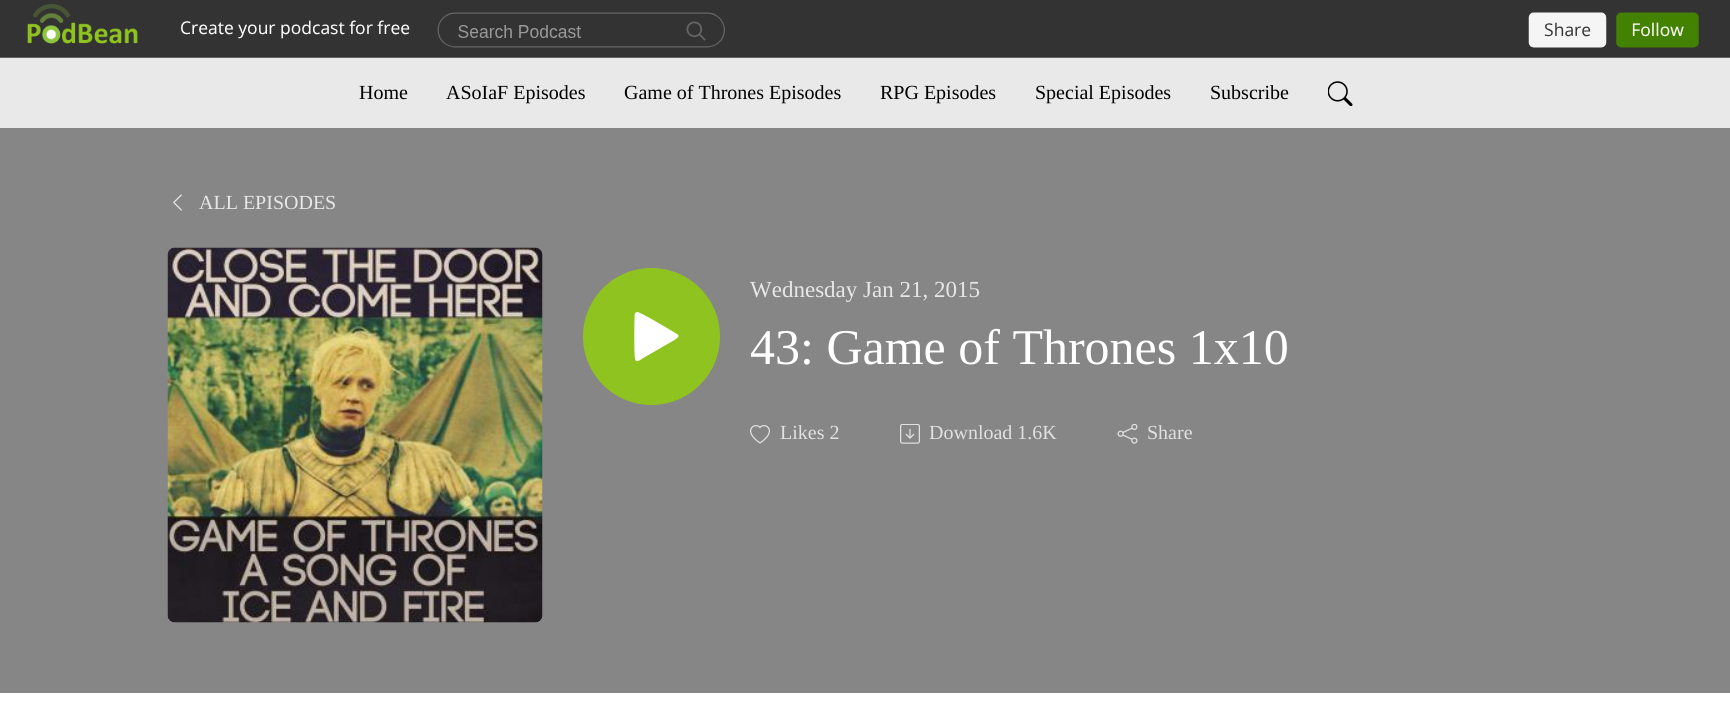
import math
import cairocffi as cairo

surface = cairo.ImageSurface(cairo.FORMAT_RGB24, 1730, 704)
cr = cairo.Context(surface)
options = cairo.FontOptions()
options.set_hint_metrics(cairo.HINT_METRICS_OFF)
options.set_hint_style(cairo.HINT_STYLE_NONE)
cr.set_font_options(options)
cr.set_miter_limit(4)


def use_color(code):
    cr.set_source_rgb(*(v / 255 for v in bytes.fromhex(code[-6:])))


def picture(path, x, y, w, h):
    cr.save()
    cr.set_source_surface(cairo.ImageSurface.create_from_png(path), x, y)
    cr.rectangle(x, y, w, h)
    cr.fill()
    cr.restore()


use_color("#ffffff")
cr.paint()
use_color("#333333")
cr.rectangle(0, 0, 1730, 4)
cr.fill()
picture("img1.png", 0, 4, 1730, 54)
use_color("#e9e9e9")
cr.rectangle(0, 58, 1730, 70)
cr.fill()
cr.select_font_face("Liberation Serif")
cr.set_font_size(20)
use_color("#000000")
cr.move_to(359, 99)
cr.show_text("Home")
cr.move_to(446, 99)
cr.show_text("ASoIaF Episodes")
cr.move_to(624, 99)
cr.show_text("Game of Thrones Episodes")
cr.move_to(880, 99)
cr.show_text("RPG Episodes")
cr.move_to(1035, 99)
cr.show_text("Special Episodes")
cr.move_to(1210, 99)
cr.show_text("Subscribe")
picture("img2.png", 1328, 81, 25, 25)
use_color("#868686")
cr.rectangle(0, 128, 1730, 565)
cr.fill()
picture("img3.png", 173, 194, 9, 17)
use_color("#e7e7e7")
cr.move_to(199, 209)
cr.show_text("ALL EPISODES")
picture("img4.png", 167, 247, 376, 376)
use_color("#8fc31f")
cr.arc(651.5, 336.5, 68.5, 0, 2 * math.pi)
cr.fill()
use_color("#ffffff")
cr.new_path()
cr.move_to(677, 334)
cr.curve_to(672, 331, 639, 311, 637, 312)
cr.line_to(635, 313)
cr.curve_to(634, 314, 634, 355, 635, 359)
cr.line_to(636, 361)
cr.curve_to(639, 362, 644, 357, 645, 357)
cr.line_to(664, 346)
cr.curve_to(674, 340, 682, 337, 677, 334)
cr.close_path()
cr.fill()
cr.set_font_size(23)
use_color("#e7e7e7")
cr.move_to(750, 297)
cr.show_text("Wednesday Jan 21, 2015")
cr.set_font_size(50)
use_color("#ffffff")
cr.move_to(750, 364)
cr.show_text("43: Game of Thrones 1x10")
picture("img5.png", 750, 425, 20, 19)
cr.set_font_size(20)
use_color("#e1e1e1")
cr.move_to(780, 439)
cr.show_text("Likes 2")
picture("img6.png", 900, 424, 20, 20)
cr.move_to(929, 439)
cr.show_text("Download 1.6K")
picture("img7.png", 1117, 424, 21, 20)
cr.move_to(1147, 439)
cr.show_text("Share")
surface.write_to_png("result.png")
